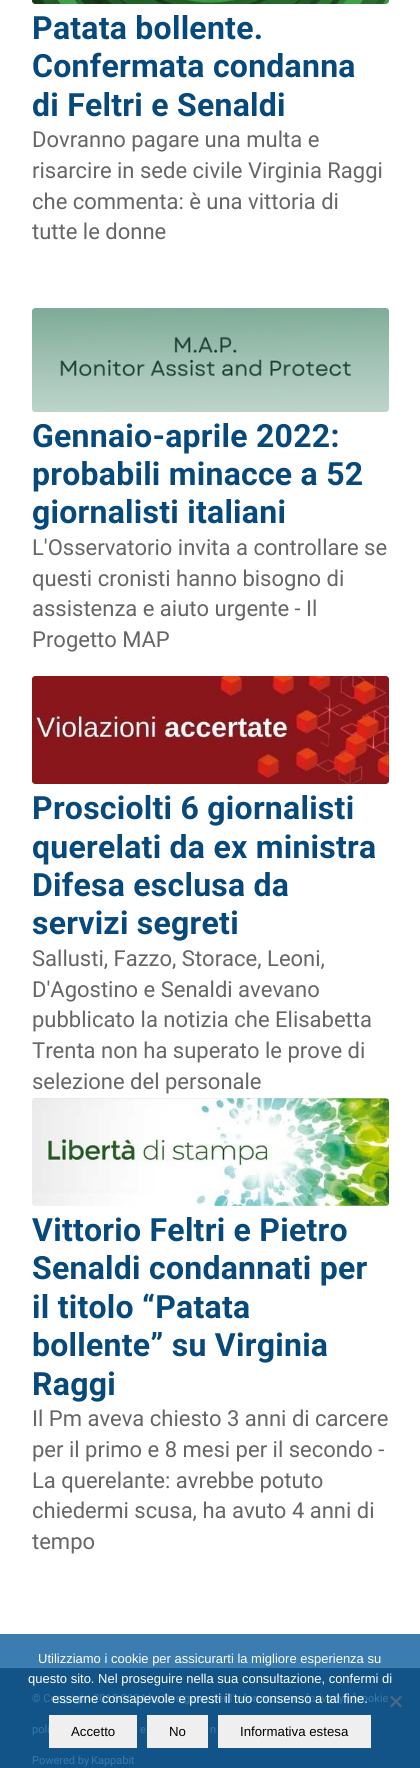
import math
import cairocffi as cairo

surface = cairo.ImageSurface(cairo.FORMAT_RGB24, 420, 1768)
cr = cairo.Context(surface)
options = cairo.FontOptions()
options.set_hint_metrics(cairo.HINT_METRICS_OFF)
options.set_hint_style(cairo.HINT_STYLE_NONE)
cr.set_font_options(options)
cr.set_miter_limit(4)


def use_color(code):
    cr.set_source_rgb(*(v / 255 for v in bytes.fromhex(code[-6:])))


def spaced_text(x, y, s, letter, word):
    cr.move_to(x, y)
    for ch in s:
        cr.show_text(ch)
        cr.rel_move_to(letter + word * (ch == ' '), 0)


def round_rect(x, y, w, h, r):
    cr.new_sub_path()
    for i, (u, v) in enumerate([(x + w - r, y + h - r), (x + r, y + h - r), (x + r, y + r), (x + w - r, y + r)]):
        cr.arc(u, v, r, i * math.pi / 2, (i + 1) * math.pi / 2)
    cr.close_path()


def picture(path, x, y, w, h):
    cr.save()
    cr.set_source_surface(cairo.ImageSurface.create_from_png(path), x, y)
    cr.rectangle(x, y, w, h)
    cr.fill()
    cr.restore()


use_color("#ffffff")
cr.paint()
use_color("#3b7db1")
cr.rectangle(0, 1634, 420, 34)
cr.fill()
use_color("#fcfcfc")
round_rect(32, -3, 357, 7, 3)
cr.fill()
picture("img1.png", 32, 0, 357, 4)
cr.select_font_face("Roboto", cairo.FONT_SLANT_NORMAL, cairo.FONT_WEIGHT_BOLD)
cr.set_font_size(32)
use_color("#08497c")
spaced_text(32, 39, "Patata bollente.", 0.25, 0)
spaced_text(32, 77, "Confermata condanna", 0.25, 0)
spaced_text(32, 116, "di Feltri e Senaldi", 0.25, 0)
cr.select_font_face("Roboto")
cr.set_font_size(22)
use_color("#666666")
cr.move_to(32, 147)
cr.show_text("Dovranno pagare una multa e")
cr.move_to(32, 178)
cr.show_text("risarcire in sede civile Virginia Raggi")
cr.move_to(32, 209)
cr.show_text("che commenta: è una vittoria di")
cr.move_to(32, 239)
cr.show_text("tutte le donne")
use_color("#fcfcfc")
round_rect(32, 308, 357, 104, 3)
cr.fill()
picture("img2.png", 32, 308, 357, 104)
cr.select_font_face("Roboto", cairo.FONT_SLANT_NORMAL, cairo.FONT_WEIGHT_BOLD)
cr.set_font_size(32)
use_color("#08497c")
spaced_text(32, 447, "Gennaio-aprile 2022:", 0.25, 0)
spaced_text(32, 485, "probabili minacce a 52", 0.25, 0)
spaced_text(32, 523, "giornalisti italiani", 0.25, 0)
cr.select_font_face("Roboto")
cr.set_font_size(22)
use_color("#666666")
cr.move_to(32, 555)
cr.show_text("L'Osservatorio invita a controllare se")
cr.move_to(32, 586)
cr.show_text("questi cronisti hanno bisogno di")
cr.move_to(32, 616)
cr.show_text("assistenza e aiuto urgente - Il")
cr.move_to(32, 647)
cr.show_text("Progetto MAP")
use_color("#fcfcfc")
round_rect(32, 676, 357, 108, 3)
cr.fill()
picture("img3.png", 32, 676, 357, 108)
cr.select_font_face("Roboto", cairo.FONT_SLANT_NORMAL, cairo.FONT_WEIGHT_BOLD)
cr.set_font_size(32)
use_color("#08497c")
spaced_text(32, 819, "Prosciolti 6 giornalisti", 0.25, 0)
spaced_text(32, 858, "querelati da ex ministra", 0.25, 0)
spaced_text(32, 896, "Difesa esclusa da", 0.25, 0)
spaced_text(32, 934, "servizi segreti", 0.25, 0)
cr.select_font_face("Roboto")
cr.set_font_size(22)
use_color("#666666")
cr.move_to(32, 966)
cr.show_text("Sallusti, Fazzo, Storace, Leoni,")
cr.move_to(32, 997)
cr.show_text("D'Agostino e Senaldi avevano")
cr.move_to(32, 1027)
cr.show_text("pubblicato la notizia che Elisabetta")
cr.move_to(32, 1058)
cr.show_text("Trenta non ha superato le prove di")
cr.move_to(32, 1089)
cr.show_text("selezione del personale")
use_color("#fcfcfc")
round_rect(32, 1098, 357, 108, 3)
cr.fill()
picture("img4.png", 32, 1098, 357, 108)
cr.select_font_face("Roboto", cairo.FONT_SLANT_NORMAL, cairo.FONT_WEIGHT_BOLD)
cr.set_font_size(32)
use_color("#08497c")
spaced_text(32, 1241, "Vittorio Feltri e Pietro", 0.25, 0)
spaced_text(32, 1279, "Senaldi condannati per", 0.25, 0)
spaced_text(32, 1318, "il titolo “Patata", 0.25, 0)
spaced_text(32, 1356, "bollente” su Virginia", 0.25, 0)
spaced_text(32, 1395, "Raggi", 0.25, 0)
cr.select_font_face("Roboto")
cr.set_font_size(22)
use_color("#666666")
cr.move_to(32, 1426)
cr.show_text("Il Pm aveva chiesto 3 anni di carcere")
cr.move_to(32, 1457)
cr.show_text("per il primo e 8 mesi per il secondo -")
cr.move_to(32, 1488)
cr.show_text("La querelante: avrebbe potuto")
cr.move_to(32, 1518)
cr.show_text("chiedermi scusa, ha avuto 4 anni di")
cr.move_to(32, 1549)
cr.show_text("tempo")
use_color("#125488")
cr.rectangle(0, 1669, 420, 99)
cr.fill()
use_color("#16578b")
cr.rectangle(0, 1668, 420, 1)
cr.fill()
cr.set_font_size(11)
use_color("#3879ad")
cr.move_to(32, 1702)
cr.show_text("© Copyright 2015-2024 by Ossigeno per l'informazione")
cr.move_to(306, 1702)
cr.show_text("[")
cr.move_to(309, 1702)
cr.show_text("privacy")
cr.move_to(347, 1702)
cr.show_text("] [")
cr.move_to(356, 1702)
cr.show_text("cookie")
cr.move_to(32, 1733)
cr.show_text("poli")
cr.move_to(140, 1733)
cr.show_text("e")
cr.move_to(210, 1733)
cr.show_text("n")
cr.move_to(32, 1764)
cr.show_text("Powered by")
cr.move_to(91, 1764)
cr.show_text("Kappabit")
cr.select_font_face("Liberation Sans")
cr.set_font_size(13)
use_color("#ffffff")
cr.move_to(38, 1663)
cr.show_text("Utilizziamo i cookie per assicurarti la migliore esperienza su")
cr.move_to(28, 1683)
cr.show_text("questo sito. Nel proseguire nella sua consultazione, confermi di")
cr.move_to(52, 1703)
cr.show_text("esserne consapevole e presti il tuo consenso a tal fine.")
use_color("#496a84")
cr.new_path()
cr.move_to(400.5, 1695.5)
cr.line_to(402, 1697)
cr.line_to(391.5, 1707.5)
cr.line_to(390, 1706)
cr.close_path()
cr.fill()
cr.new_path()
cr.move_to(390, 1697)
cr.line_to(391.5, 1695.5)
cr.line_to(402, 1706)
cr.line_to(400.5, 1707.5)
cr.close_path()
cr.fill()
use_color("#efefef")
cr.rectangle(49, 1715, 88, 33)
cr.fill()
cr.set_font_size(13.25)
use_color("#000000")
cr.move_to(71, 1736)
cr.show_text("Accetto")
use_color("#efefef")
cr.rectangle(147, 1715, 61, 33)
cr.fill()
use_color("#000000")
cr.move_to(169, 1736)
cr.show_text("No")
use_color("#efefef")
cr.rectangle(218, 1715, 153, 33)
cr.fill()
use_color("#000000")
cr.move_to(240, 1736)
cr.show_text("Informativa estesa")
surface.write_to_png("result.png")
